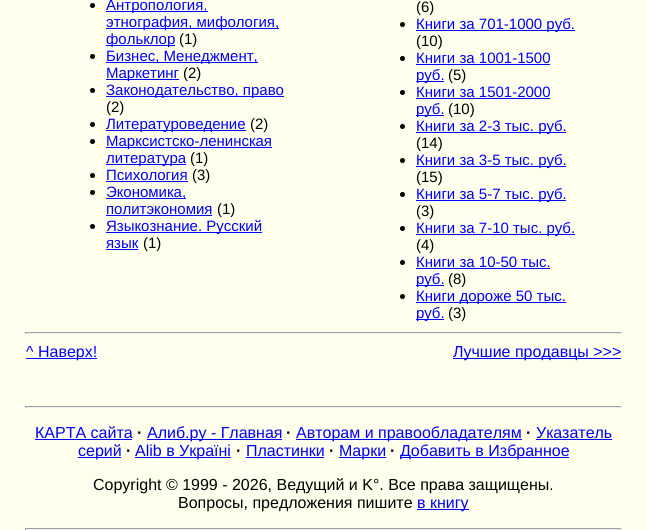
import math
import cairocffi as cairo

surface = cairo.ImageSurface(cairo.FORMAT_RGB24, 647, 530)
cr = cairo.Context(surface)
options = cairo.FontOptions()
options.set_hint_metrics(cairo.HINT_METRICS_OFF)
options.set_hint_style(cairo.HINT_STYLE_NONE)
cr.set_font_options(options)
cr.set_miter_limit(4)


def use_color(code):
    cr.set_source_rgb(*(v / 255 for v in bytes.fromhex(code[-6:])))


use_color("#ffffee")
cr.paint()
use_color("#000000")
cr.arc(92.5, 5.5, 2.5, 0, 2 * math.pi)
cr.fill()
use_color("#0000ff")
cr.rectangle(106, 11, 102, 1)
cr.fill()
cr.select_font_face("Liberation Sans")
cr.set_font_size(15)
cr.move_to(106, 10)
cr.show_text("Антропология,")
cr.rectangle(106, 28, 173, 1)
cr.fill()
cr.move_to(106, 27)
cr.show_text("этнография, мифология,")
cr.rectangle(106, 45, 69, 1)
cr.fill()
cr.move_to(106, 44)
cr.show_text("фольклор")
use_color("#000000")
cr.move_to(179, 44)
cr.show_text("(1)")
cr.new_path()
cr.arc(92.5, 56.5, 2.5, 0, 2 * math.pi)
cr.fill()
use_color("#0000ff")
cr.rectangle(106, 62, 152, 1)
cr.fill()
cr.move_to(106, 61)
cr.show_text("Бизнес, Менеджмент,")
cr.rectangle(106, 79, 73, 1)
cr.fill()
cr.move_to(106, 78)
cr.show_text("Маркетинг")
use_color("#000000")
cr.move_to(183, 78)
cr.show_text("(2)")
cr.new_path()
cr.arc(92.5, 90.5, 2.5, 0, 2 * math.pi)
cr.fill()
use_color("#0000ff")
cr.rectangle(106, 96, 178, 1)
cr.fill()
cr.move_to(106, 95)
cr.show_text("Законодательство, право")
use_color("#000000")
cr.move_to(106, 112)
cr.show_text("(2)")
cr.new_path()
cr.arc(92.5, 124.5, 2.5, 0, 2 * math.pi)
cr.fill()
use_color("#0000ff")
cr.rectangle(106, 130, 140, 1)
cr.fill()
cr.move_to(106, 129)
cr.show_text("Литературоведение")
use_color("#000000")
cr.move_to(250, 129)
cr.show_text("(2)")
cr.new_path()
cr.arc(92.5, 141.5, 2.5, 0, 2 * math.pi)
cr.fill()
use_color("#0000ff")
cr.rectangle(106, 147, 166, 1)
cr.fill()
cr.move_to(106, 146)
cr.show_text("Марксистско-ленинская")
cr.rectangle(106, 164, 80, 1)
cr.fill()
cr.move_to(106, 163)
cr.show_text("литература")
use_color("#000000")
cr.move_to(190, 163)
cr.show_text("(1)")
cr.new_path()
cr.arc(92.5, 175.5, 2.5, 0, 2 * math.pi)
cr.fill()
use_color("#0000ff")
cr.move_to(106, 180)
cr.show_text("Психология")
cr.rectangle(106, 181, 82, 1)
cr.fill()
use_color("#000000")
cr.move_to(192, 180)
cr.show_text("(3)")
cr.new_path()
cr.arc(92.5, 192.5, 2.5, 0, 2 * math.pi)
cr.fill()
use_color("#0000ff")
cr.rectangle(106, 198, 80, 1)
cr.fill()
cr.move_to(106, 197)
cr.show_text("Экономика,")
cr.move_to(106, 214)
cr.show_text("политэкономия")
cr.rectangle(106, 215, 106, 1)
cr.fill()
use_color("#000000")
cr.move_to(217, 214)
cr.show_text("(1)")
cr.new_path()
cr.arc(92.5, 226.5, 2.5, 0, 2 * math.pi)
cr.fill()
use_color("#0000ff")
cr.rectangle(106, 232, 156, 1)
cr.fill()
cr.move_to(106, 231)
cr.show_text("Языкознание. Русский")
cr.move_to(106, 248)
cr.show_text("язык")
cr.rectangle(106, 249, 32, 1)
cr.fill()
use_color("#000000")
cr.move_to(143, 248)
cr.show_text("(1)")
cr.move_to(416, 12)
cr.show_text("(6)")
cr.new_path()
cr.arc(402.5, 24.5, 2.5, 0, 2 * math.pi)
cr.fill()
use_color("#0000ff")
cr.rectangle(416, 30, 159, 1)
cr.fill()
cr.move_to(416, 29)
cr.show_text("Книги за 701-1000 руб.")
use_color("#000000")
cr.move_to(416, 46)
cr.show_text("(10)")
cr.new_path()
cr.arc(402.5, 58.5, 2.5, 0, 2 * math.pi)
cr.fill()
use_color("#0000ff")
cr.move_to(416, 63)
cr.show_text("Книги за 1001-1500")
cr.rectangle(416, 64, 134, 1)
cr.fill()
cr.rectangle(416, 81, 28, 1)
cr.fill()
cr.move_to(416, 80)
cr.show_text("руб.")
use_color("#000000")
cr.move_to(448, 80)
cr.show_text("(5)")
cr.new_path()
cr.arc(402.5, 92.5, 2.5, 0, 2 * math.pi)
cr.fill()
use_color("#0000ff")
cr.move_to(416, 97)
cr.show_text("Книги за 1501-2000")
cr.rectangle(416, 98, 134, 1)
cr.fill()
cr.rectangle(416, 115, 28, 1)
cr.fill()
cr.move_to(416, 114)
cr.show_text("руб.")
use_color("#000000")
cr.move_to(448, 114)
cr.show_text("(10)")
cr.new_path()
cr.arc(402.5, 126.5, 2.5, 0, 2 * math.pi)
cr.fill()
use_color("#0000ff")
cr.rectangle(416, 132, 150, 1)
cr.fill()
cr.move_to(416, 131)
cr.show_text("Книги за 2-3 тыс. руб.")
use_color("#000000")
cr.move_to(416, 148)
cr.show_text("(14)")
cr.new_path()
cr.arc(402.5, 160.5, 2.5, 0, 2 * math.pi)
cr.fill()
use_color("#0000ff")
cr.rectangle(416, 166, 150, 1)
cr.fill()
cr.move_to(416, 165)
cr.show_text("Книги за 3-5 тыс. руб.")
use_color("#000000")
cr.move_to(416, 182)
cr.show_text("(15)")
cr.new_path()
cr.arc(402.5, 194.5, 2.5, 0, 2 * math.pi)
cr.fill()
use_color("#0000ff")
cr.rectangle(416, 200, 150, 1)
cr.fill()
cr.move_to(416, 199)
cr.show_text("Книги за 5-7 тыс. руб.")
use_color("#000000")
cr.move_to(416, 216)
cr.show_text("(3)")
cr.new_path()
cr.arc(402.5, 228.5, 2.5, 0, 2 * math.pi)
cr.fill()
use_color("#0000ff")
cr.rectangle(416, 234, 159, 1)
cr.fill()
cr.move_to(416, 233)
cr.show_text("Книги за 7-10 тыс. руб.")
use_color("#000000")
cr.move_to(416, 250)
cr.show_text("(4)")
cr.new_path()
cr.arc(402.5, 262.5, 2.5, 0, 2 * math.pi)
cr.fill()
use_color("#0000ff")
cr.move_to(416, 267)
cr.show_text("Книги за 10-50 тыс.")
cr.rectangle(416, 268, 134, 1)
cr.fill()
cr.rectangle(416, 285, 28, 1)
cr.fill()
cr.move_to(416, 284)
cr.show_text("руб.")
use_color("#000000")
cr.move_to(448, 284)
cr.show_text("(8)")
cr.new_path()
cr.arc(402.5, 296.5, 2.5, 0, 2 * math.pi)
cr.fill()
use_color("#0000ff")
cr.rectangle(416, 302, 150, 1)
cr.fill()
cr.move_to(416, 301)
cr.show_text("Книги дороже 50 тыс.")
cr.rectangle(416, 319, 28, 1)
cr.fill()
cr.move_to(416, 318)
cr.show_text("руб.")
use_color("#000000")
cr.move_to(448, 318)
cr.show_text("(3)")
use_color("#9f9f9f")
cr.rectangle(25, 332, 597, 1)
cr.fill()
use_color("#eeeeee")
cr.rectangle(621, 332, 1, 2)
cr.fill()
cr.rectangle(25, 333, 597, 1)
cr.fill()
use_color("#9f9f9f")
cr.rectangle(25, 332, 1, 2)
cr.fill()
use_color("#0000ff")
cr.rectangle(26, 358, 71, 1)
cr.fill()
cr.set_font_size(16)
cr.move_to(26, 357)
cr.show_text("^ Наверх!")
cr.rectangle(453, 358, 168, 1)
cr.fill()
cr.move_to(453, 357)
cr.show_text("Лучшие продавцы >>>")
use_color("#9f9f9f")
cr.rectangle(25, 406, 597, 1)
cr.fill()
use_color("#eeeeee")
cr.rectangle(621, 406, 1, 2)
cr.fill()
cr.rectangle(25, 407, 597, 1)
cr.fill()
use_color("#9f9f9f")
cr.rectangle(25, 406, 1, 2)
cr.fill()
use_color("#0000ff")
cr.move_to(35, 438)
cr.show_text("КАРТА сайта")
cr.rectangle(35, 439, 97, 1)
cr.fill()
cr.select_font_face("Liberation Sans", cairo.FONT_SLANT_NORMAL, cairo.FONT_WEIGHT_BOLD)
use_color("#000000")
cr.move_to(137, 438)
cr.show_text("·")
use_color("#0000ff")
cr.rectangle(147, 439, 135, 1)
cr.fill()
cr.select_font_face("Liberation Sans")
cr.move_to(147, 438)
cr.show_text("Алиб.ру - Главная")
cr.select_font_face("Liberation Sans", cairo.FONT_SLANT_NORMAL, cairo.FONT_WEIGHT_BOLD)
use_color("#000000")
cr.move_to(286, 438)
cr.show_text("·")
use_color("#0000ff")
cr.rectangle(296, 439, 226, 1)
cr.fill()
cr.select_font_face("Liberation Sans")
cr.move_to(296, 438)
cr.show_text("Авторам и правообладателям")
cr.select_font_face("Liberation Sans", cairo.FONT_SLANT_NORMAL, cairo.FONT_WEIGHT_BOLD)
use_color("#000000")
cr.move_to(526, 438)
cr.show_text("·")
cr.select_font_face("Liberation Sans")
use_color("#0000ff")
cr.move_to(536, 438)
cr.show_text("Указатель")
cr.rectangle(536, 439, 76, 1)
cr.fill()
cr.rectangle(78, 457, 43, 1)
cr.fill()
cr.move_to(78, 456)
cr.show_text("серий")
cr.select_font_face("Liberation Sans", cairo.FONT_SLANT_NORMAL, cairo.FONT_WEIGHT_BOLD)
use_color("#000000")
cr.move_to(126, 456)
cr.show_text("·")
use_color("#0000ff")
cr.rectangle(135, 457, 96, 1)
cr.fill()
cr.select_font_face("Liberation Sans")
cr.move_to(135, 456)
cr.show_text("Alib в Українi")
cr.select_font_face("Liberation Sans", cairo.FONT_SLANT_NORMAL, cairo.FONT_WEIGHT_BOLD)
use_color("#000000")
cr.move_to(236, 456)
cr.show_text("·")
cr.select_font_face("Liberation Sans")
use_color("#0000ff")
cr.move_to(246, 456)
cr.show_text("Пластинки")
cr.rectangle(246, 457, 78, 1)
cr.fill()
cr.select_font_face("Liberation Sans", cairo.FONT_SLANT_NORMAL, cairo.FONT_WEIGHT_BOLD)
use_color("#000000")
cr.move_to(329, 456)
cr.show_text("·")
use_color("#0000ff")
cr.rectangle(339, 457, 47, 1)
cr.fill()
cr.select_font_face("Liberation Sans")
cr.move_to(339, 456)
cr.show_text("Марки")
cr.select_font_face("Liberation Sans", cairo.FONT_SLANT_NORMAL, cairo.FONT_WEIGHT_BOLD)
use_color("#000000")
cr.move_to(390, 456)
cr.show_text("·")
use_color("#0000ff")
cr.rectangle(400, 457, 169, 1)
cr.fill()
cr.select_font_face("Liberation Sans")
cr.move_to(400, 456)
cr.show_text("Добавить в Избранное")
use_color("#000000")
cr.move_to(93, 490)
cr.show_text("Copyright © 1999 - 2026, Ведущий и K°. Все права защищены.")
cr.move_to(178, 508)
cr.show_text("Вопросы, предложения пишите")
use_color("#0000ff")
cr.rectangle(417, 509, 52, 1)
cr.fill()
cr.move_to(417, 508)
cr.show_text("в книгу")
use_color("#9f9f9f")
cr.rectangle(25, 528, 597, 1)
cr.fill()
use_color("#eeeeee")
cr.rectangle(621, 528, 1, 2)
cr.fill()
cr.rectangle(25, 529, 597, 1)
cr.fill()
use_color("#9f9f9f")
cr.rectangle(25, 528, 1, 2)
cr.fill()
surface.write_to_png("result.png")
